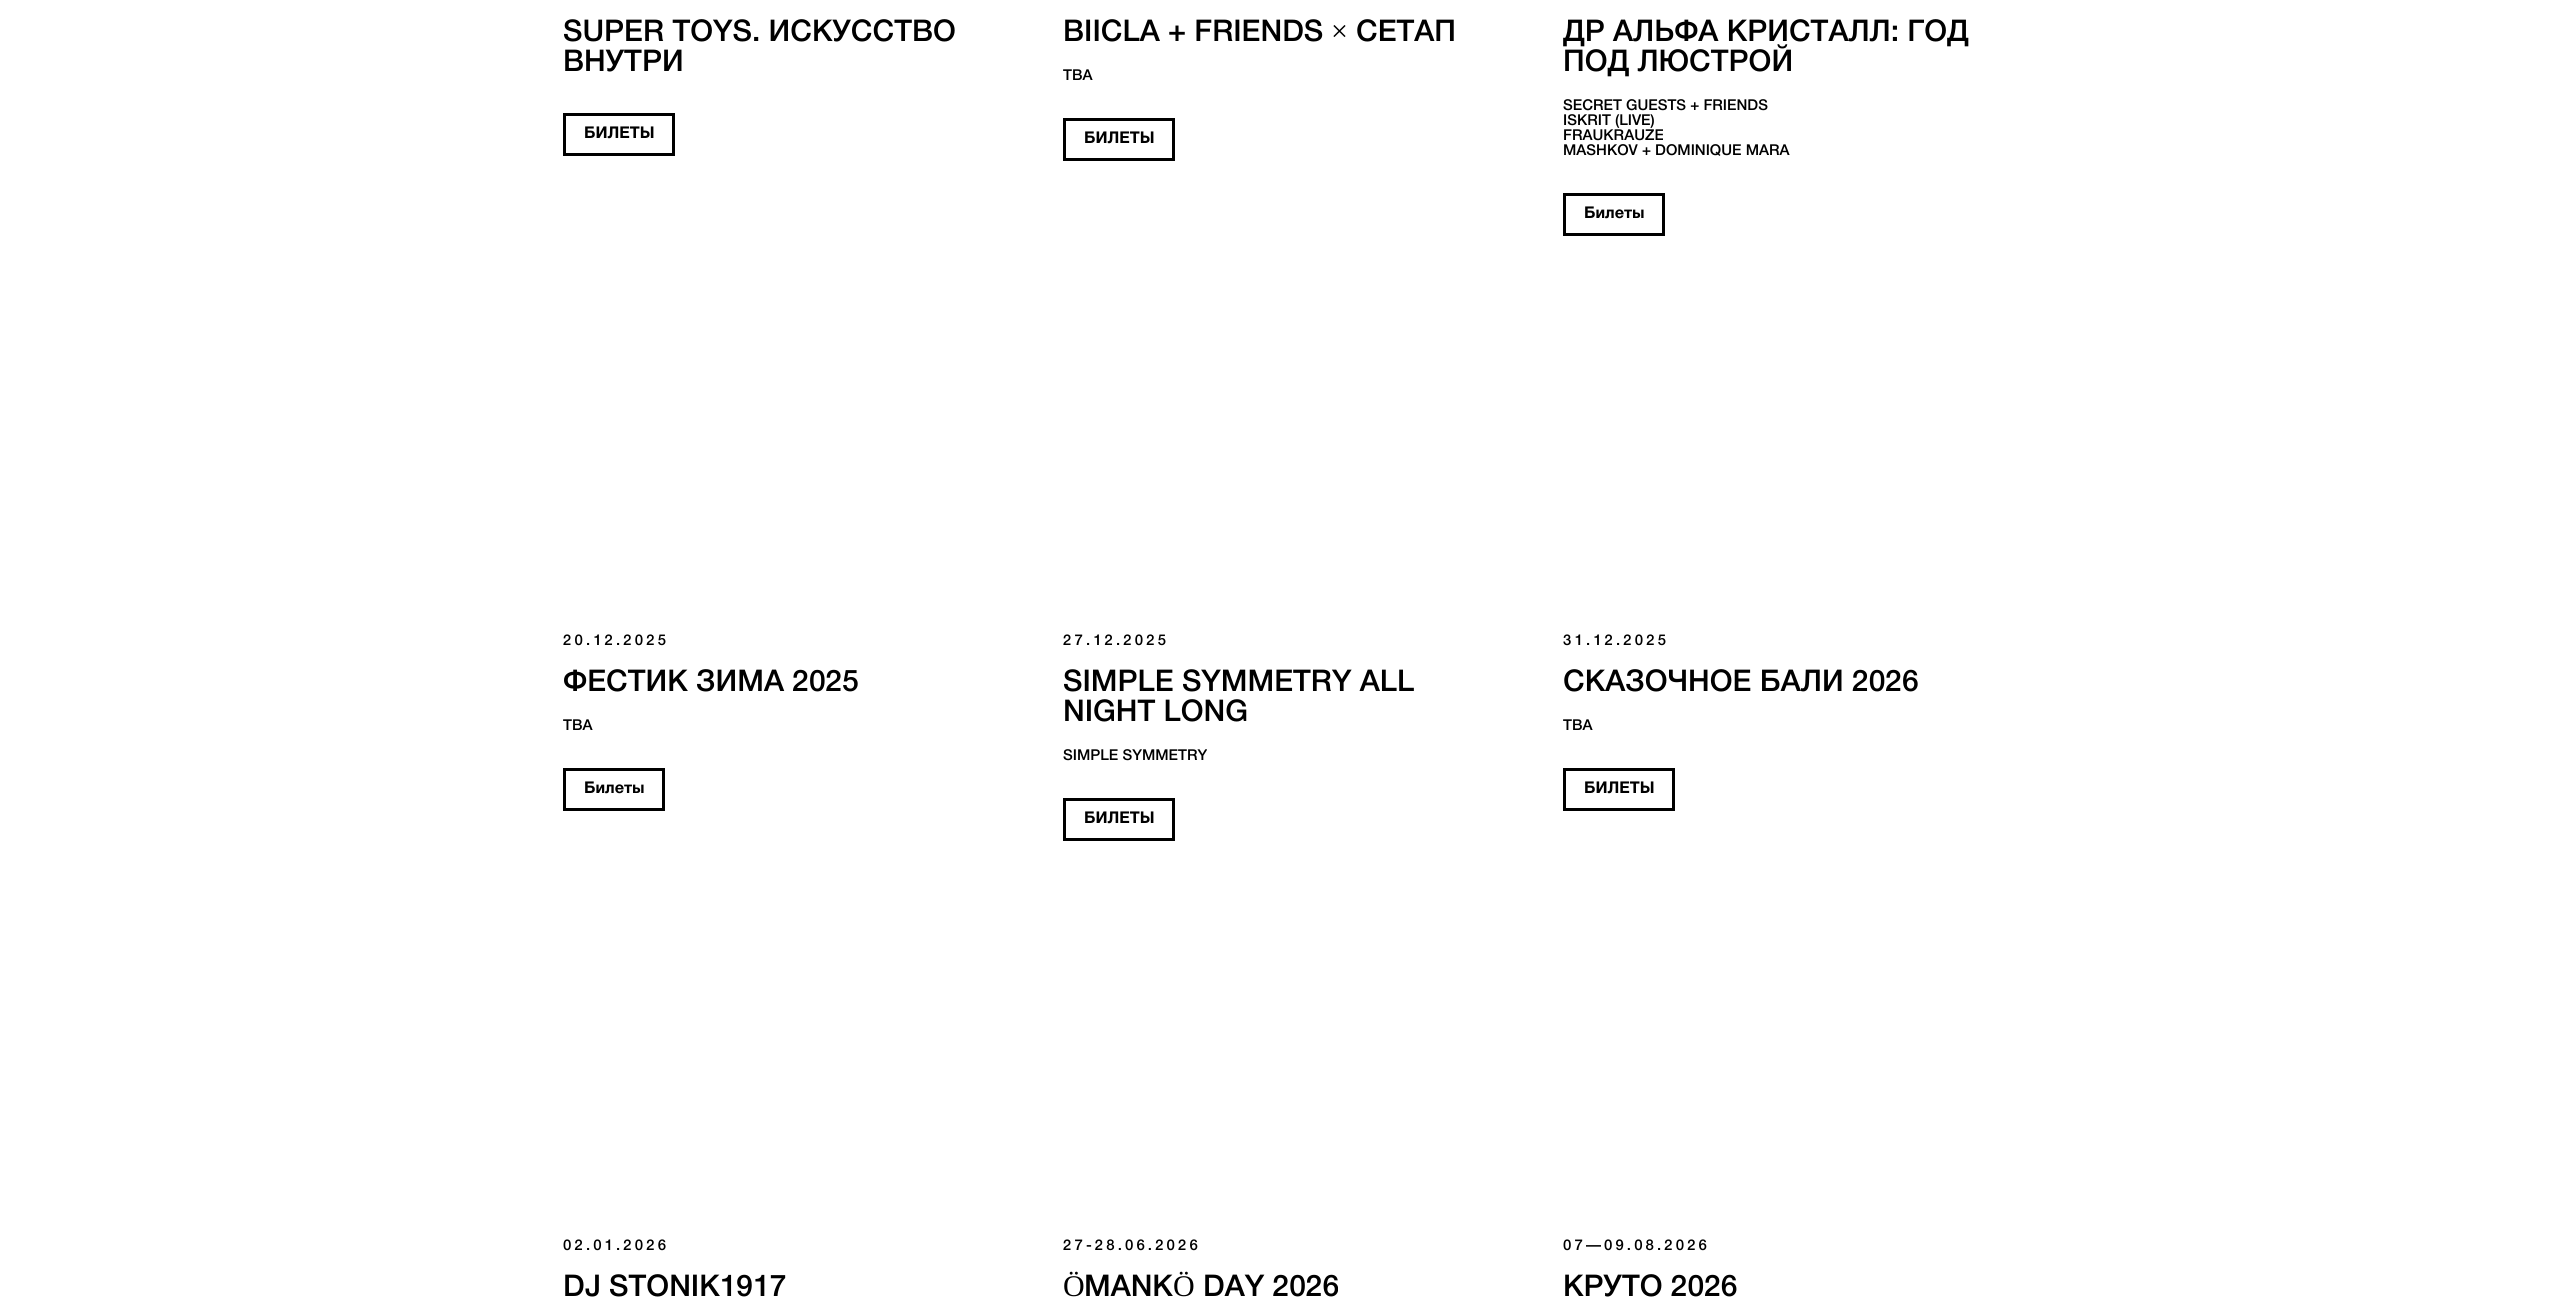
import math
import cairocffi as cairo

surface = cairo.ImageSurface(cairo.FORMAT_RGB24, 2575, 1313)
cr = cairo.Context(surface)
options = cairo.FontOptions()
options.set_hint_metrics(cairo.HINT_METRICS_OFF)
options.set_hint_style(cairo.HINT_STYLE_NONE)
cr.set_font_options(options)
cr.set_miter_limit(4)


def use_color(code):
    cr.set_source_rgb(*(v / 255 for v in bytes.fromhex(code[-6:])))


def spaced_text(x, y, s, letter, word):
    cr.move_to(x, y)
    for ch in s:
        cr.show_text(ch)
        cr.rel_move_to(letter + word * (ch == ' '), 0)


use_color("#ffffff")
cr.paint()
cr.select_font_face("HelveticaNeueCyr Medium")
cr.set_font_size(30)
use_color("#000000")
cr.move_to(563, 41)
cr.show_text("SUPER TOYS. ИСКУССТВО")
cr.move_to(563, 71)
cr.show_text("ВНУТРИ")
cr.rectangle(564.5, 114.5, 109, 40)
cr.set_line_width(3)
cr.stroke()
cr.select_font_face("HelveticaNeueCyr", cairo.FONT_SLANT_NORMAL, cairo.FONT_WEIGHT_BOLD)
cr.set_font_size(16.25)
cr.move_to(584, 138)
cr.show_text("БИЛЕТЫ")
cr.select_font_face("HelveticaNeueCyr Medium")
cr.set_font_size(30)
cr.move_to(1063, 41)
cr.show_text("BIICLA + FRIENDS")
cr.select_font_face("Liberation Serif")
cr.move_to(1331, 41)
cr.show_text("×")
cr.select_font_face("HelveticaNeueCyr Medium")
cr.move_to(1356, 41)
cr.show_text("СЕТАП")
cr.set_font_size(15)
cr.move_to(1063, 80)
cr.show_text("TBA")
cr.rectangle(1064.5, 119.5, 109, 40)
cr.stroke()
cr.select_font_face("HelveticaNeueCyr", cairo.FONT_SLANT_NORMAL, cairo.FONT_WEIGHT_BOLD)
cr.set_font_size(16.25)
cr.move_to(1084, 143)
cr.show_text("БИЛЕТЫ")
cr.select_font_face("HelveticaNeueCyr Medium")
cr.set_font_size(30)
cr.move_to(1563, 41)
cr.show_text("ДР АЛЬФА КРИСТАЛЛ: ГОД")
cr.move_to(1563, 71)
cr.show_text("ПОД ЛЮСТРОЙ")
cr.set_font_size(15)
cr.move_to(1563, 110)
cr.show_text("SECRET GUESTS + FRIENDS")
cr.move_to(1563, 125)
cr.show_text("ISKRIT (LIVE)")
cr.move_to(1563, 140)
cr.show_text("FRAUKRAUZE")
cr.move_to(1563, 155)
cr.show_text("MASHKOV + DOMINIQUE MARA")
cr.rectangle(1564.5, 194.5, 99, 40)
cr.stroke()
cr.select_font_face("HelveticaNeueCyr", cairo.FONT_SLANT_NORMAL, cairo.FONT_WEIGHT_BOLD)
cr.set_font_size(16.25)
cr.move_to(1584, 218)
cr.show_text("Билеты")
cr.select_font_face("HelveticaNeueCyr Medium")
cr.set_font_size(15)
spaced_text(563, 645, "20.12.2025", 3.1, 0)
cr.set_font_size(30)
cr.move_to(563, 691)
cr.show_text("ФЕСТИК ЗИМА 2025")
cr.set_font_size(15)
cr.move_to(563, 730)
cr.show_text("TBA")
cr.rectangle(564.5, 769.5, 99, 40)
cr.stroke()
cr.select_font_face("HelveticaNeueCyr", cairo.FONT_SLANT_NORMAL, cairo.FONT_WEIGHT_BOLD)
cr.set_font_size(16.25)
cr.move_to(584, 793)
cr.show_text("Билеты")
cr.select_font_face("HelveticaNeueCyr Medium")
cr.set_font_size(15)
spaced_text(1063, 645, "27.12.2025", 3.1, 0)
cr.set_font_size(30)
cr.move_to(1063, 691)
cr.show_text("SIMPLE SYMMETRY ALL")
cr.move_to(1063, 721)
cr.show_text("NIGHT LONG")
cr.set_font_size(15)
cr.move_to(1063, 760)
cr.show_text("SIMPLE SYMMETRY")
cr.rectangle(1064.5, 799.5, 109, 40)
cr.stroke()
cr.select_font_face("HelveticaNeueCyr", cairo.FONT_SLANT_NORMAL, cairo.FONT_WEIGHT_BOLD)
cr.set_font_size(16.25)
cr.move_to(1084, 823)
cr.show_text("БИЛЕТЫ")
cr.select_font_face("HelveticaNeueCyr Medium")
cr.set_font_size(15)
spaced_text(1563, 645, "31.12.2025", 3.1, 0)
cr.set_font_size(30)
cr.move_to(1563, 691)
cr.show_text("СКАЗОЧНОЕ БАЛИ 2026")
cr.set_font_size(15)
cr.move_to(1563, 730)
cr.show_text("TBA")
cr.rectangle(1564.5, 769.5, 109, 40)
cr.stroke()
cr.select_font_face("HelveticaNeueCyr", cairo.FONT_SLANT_NORMAL, cairo.FONT_WEIGHT_BOLD)
cr.set_font_size(16.25)
cr.move_to(1584, 793)
cr.show_text("БИЛЕТЫ")
cr.select_font_face("HelveticaNeueCyr Medium")
cr.set_font_size(15)
spaced_text(563, 1250, "02.01.2026", 3.1, 0)
cr.set_font_size(30)
cr.move_to(563, 1296)
cr.show_text("DJ STONIK1917")
cr.set_font_size(15)
spaced_text(1063, 1250, "27-28.06.2026", 3.1, 0)
cr.select_font_face("Liberation Serif")
cr.set_font_size(30)
cr.move_to(1063, 1296)
cr.show_text("Ö")
cr.select_font_face("HelveticaNeueCyr Medium")
cr.move_to(1084, 1296)
cr.show_text("MANK")
cr.select_font_face("Liberation Serif")
cr.move_to(1173, 1296)
cr.show_text("Ö")
cr.select_font_face("HelveticaNeueCyr Medium")
cr.move_to(1203, 1296)
cr.show_text("DAY 2026")
cr.set_font_size(15)
spaced_text(1563, 1250, "07—09.08.2026", 3.1, 0)
cr.set_font_size(30)
cr.move_to(1563, 1296)
cr.show_text("КРУТО 2026")
surface.write_to_png("result.png")
